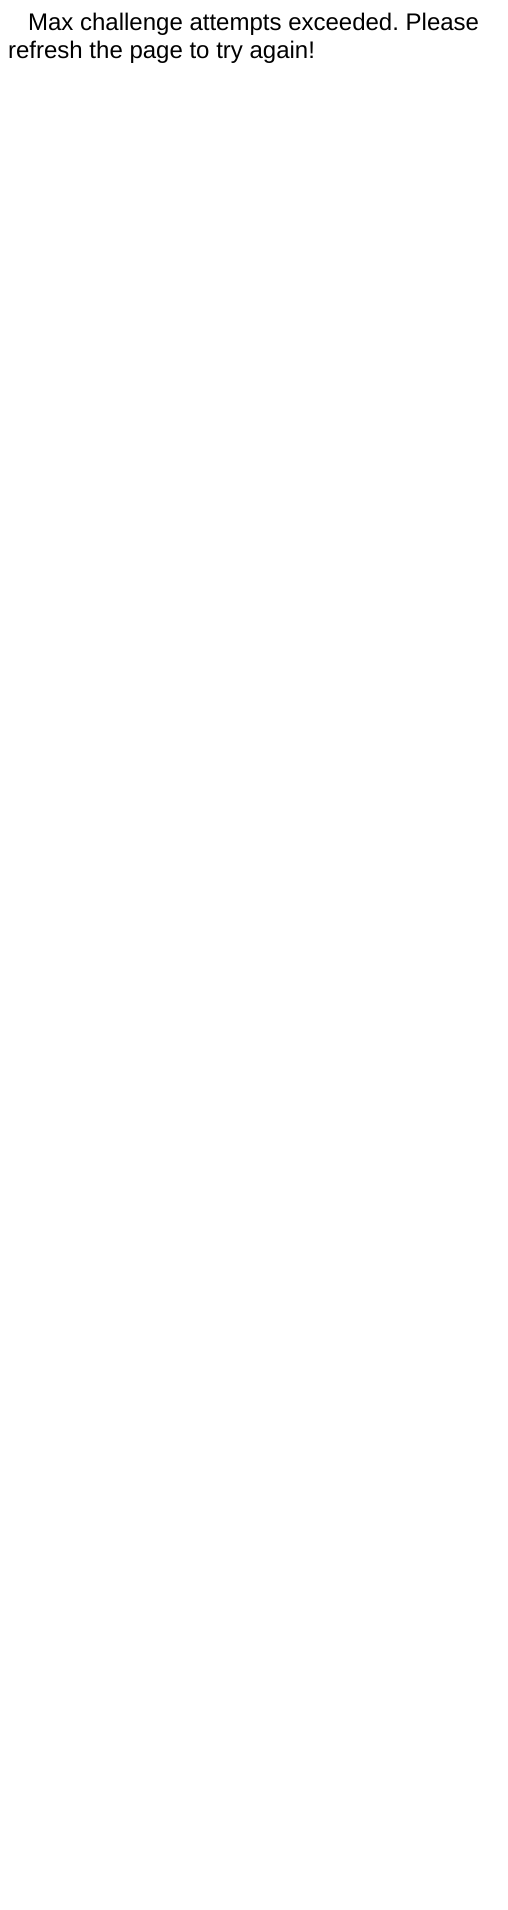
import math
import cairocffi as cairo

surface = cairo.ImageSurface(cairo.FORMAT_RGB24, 508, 1910)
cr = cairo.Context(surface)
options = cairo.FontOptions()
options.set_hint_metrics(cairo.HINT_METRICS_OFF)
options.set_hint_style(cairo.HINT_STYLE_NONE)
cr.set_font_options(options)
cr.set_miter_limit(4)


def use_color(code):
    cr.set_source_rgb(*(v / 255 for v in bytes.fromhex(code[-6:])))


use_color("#ffffff")
cr.paint()
cr.select_font_face("Liberation Sans")
cr.set_font_size(24)
use_color("#000000")
cr.move_to(28, 30)
cr.show_text("Max challenge attempts exceeded. Please")
cr.move_to(8, 58)
cr.show_text("refresh the page to try again!")
surface.write_to_png("result.png")
